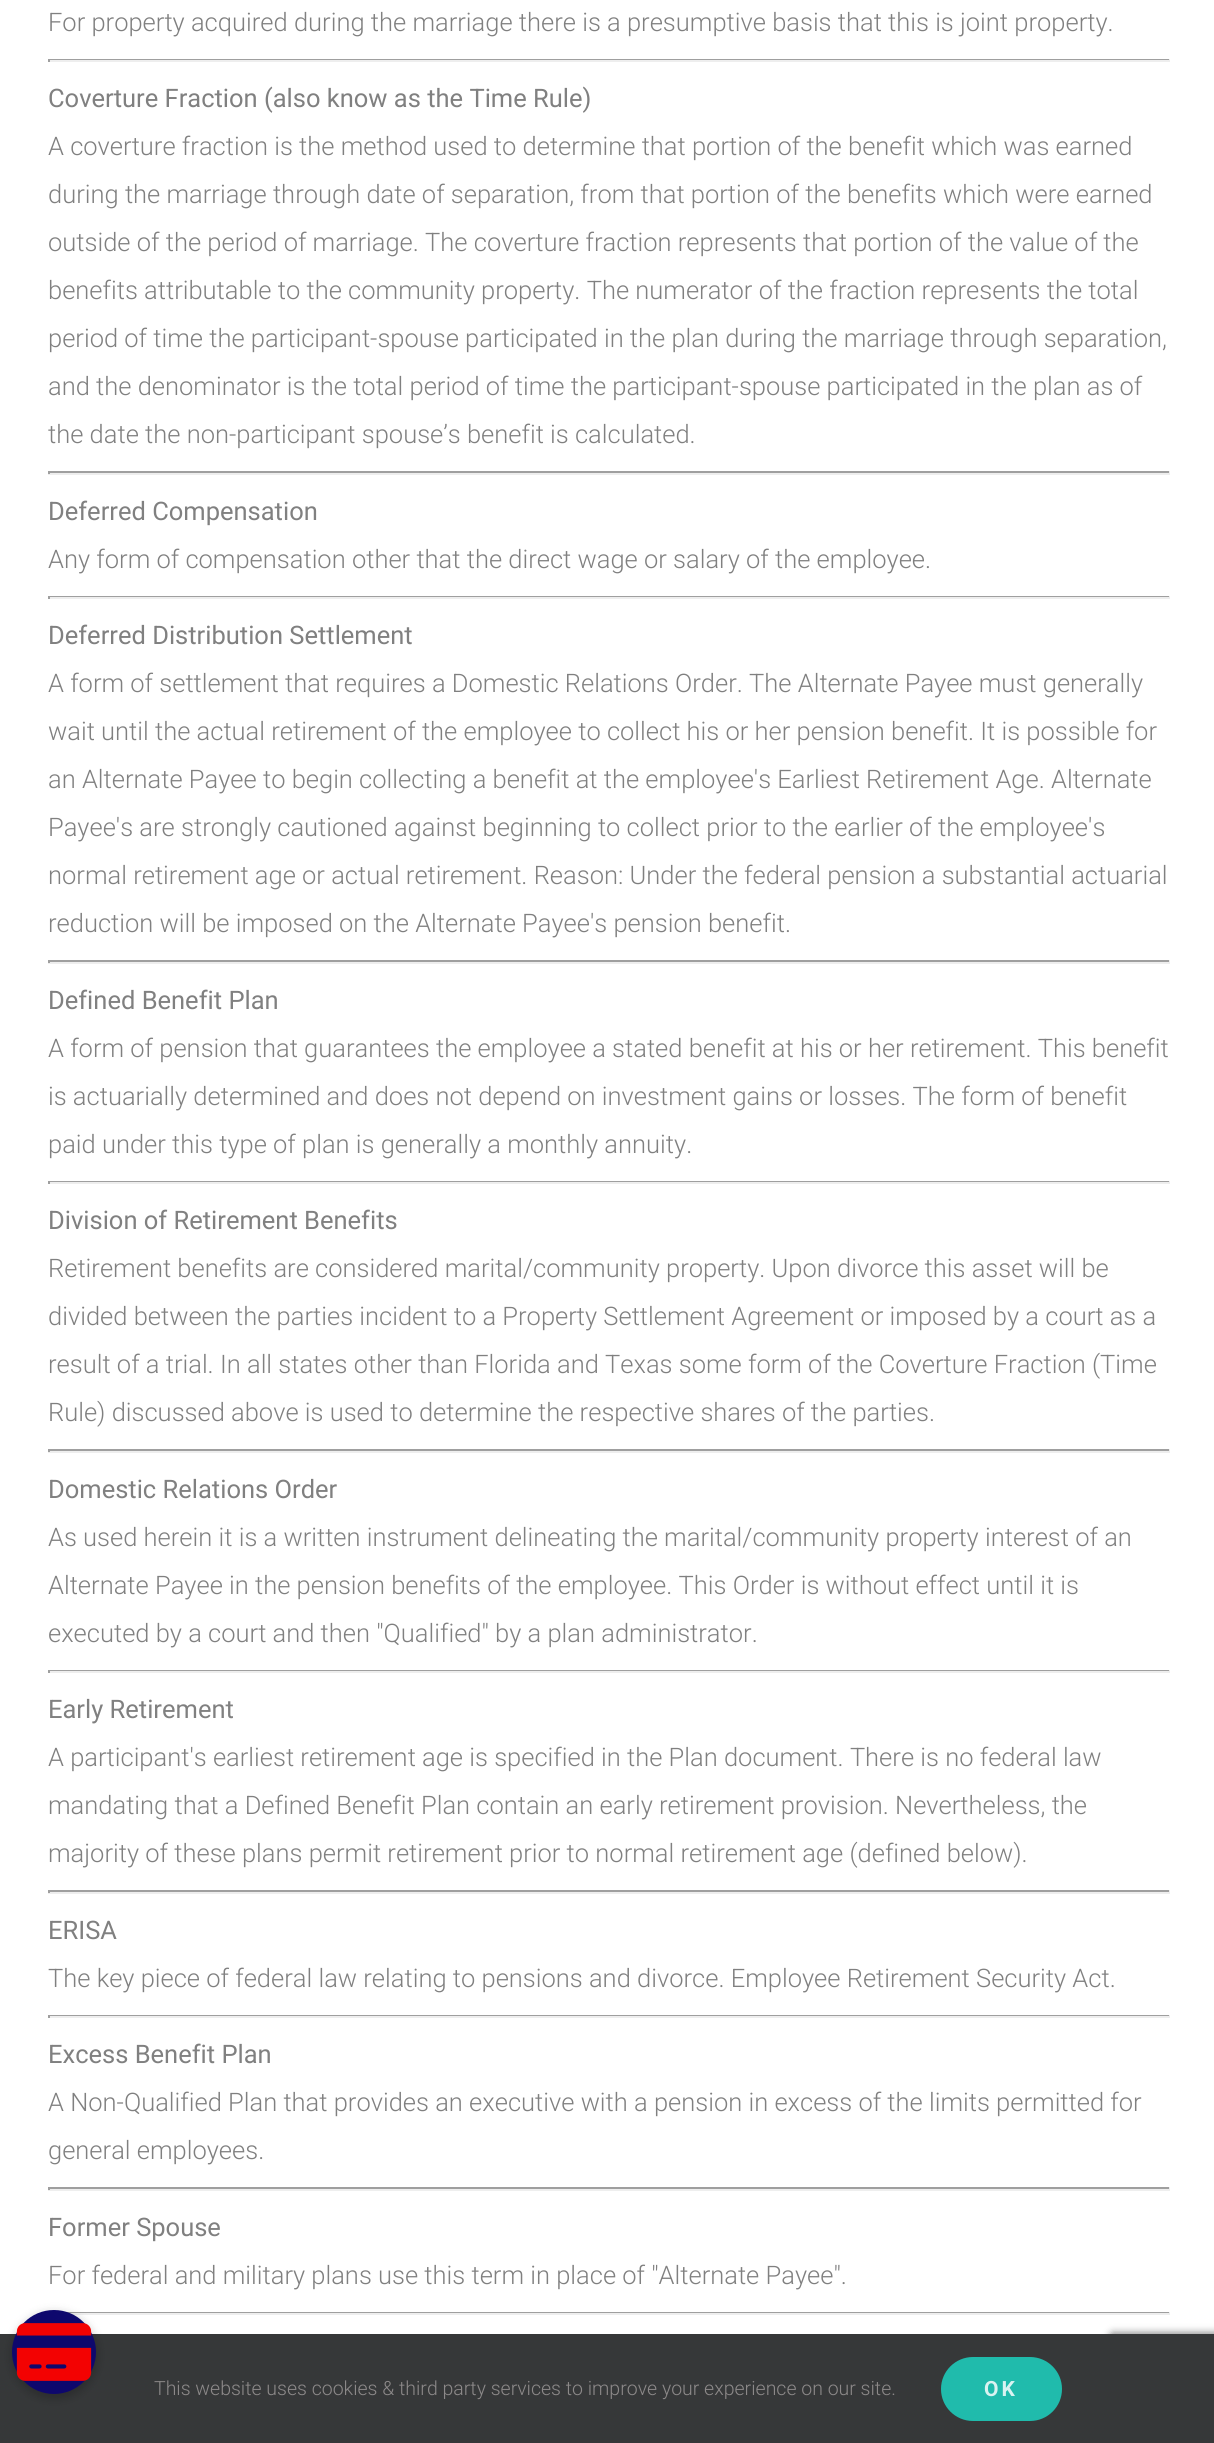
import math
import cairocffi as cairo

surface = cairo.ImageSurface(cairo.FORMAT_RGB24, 1214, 2443)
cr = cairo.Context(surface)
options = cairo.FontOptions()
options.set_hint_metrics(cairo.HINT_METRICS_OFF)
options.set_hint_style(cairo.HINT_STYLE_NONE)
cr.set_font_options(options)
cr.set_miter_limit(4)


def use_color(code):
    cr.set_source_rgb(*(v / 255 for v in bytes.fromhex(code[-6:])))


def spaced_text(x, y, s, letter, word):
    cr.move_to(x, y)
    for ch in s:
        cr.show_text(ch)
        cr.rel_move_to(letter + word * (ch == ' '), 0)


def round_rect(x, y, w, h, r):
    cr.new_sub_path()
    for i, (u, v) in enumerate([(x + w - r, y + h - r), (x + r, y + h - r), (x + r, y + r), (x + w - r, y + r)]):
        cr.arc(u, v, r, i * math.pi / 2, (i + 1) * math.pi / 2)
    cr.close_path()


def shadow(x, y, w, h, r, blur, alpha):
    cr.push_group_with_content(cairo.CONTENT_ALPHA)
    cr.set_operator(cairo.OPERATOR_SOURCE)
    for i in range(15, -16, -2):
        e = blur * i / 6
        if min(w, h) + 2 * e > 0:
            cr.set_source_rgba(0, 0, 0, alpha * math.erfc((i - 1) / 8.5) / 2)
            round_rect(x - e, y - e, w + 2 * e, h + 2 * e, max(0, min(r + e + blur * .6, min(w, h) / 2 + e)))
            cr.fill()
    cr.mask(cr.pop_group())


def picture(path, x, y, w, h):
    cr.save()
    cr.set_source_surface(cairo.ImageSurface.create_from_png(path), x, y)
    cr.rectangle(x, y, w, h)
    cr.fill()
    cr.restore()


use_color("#ffffff")
cr.paint()
cr.select_font_face("Roboto Light")
cr.set_font_size(25.5)
use_color("#808080")
cr.move_to(48, 31)
cr.show_text("For property acquired during the marriage there is a presumptive basis that this is joint property.")
use_color("#9f9f9f")
cr.rectangle(48, 59, 1122, 1)
cr.fill()
use_color("#eeeeee")
cr.rectangle(1169, 59, 1, 3)
cr.fill()
cr.rectangle(48, 60, 1122, 2)
cr.fill()
use_color("#9f9f9f")
cr.rectangle(48, 59, 2, 3)
cr.fill()
cr.select_font_face("Roboto")
use_color("#808080")
cr.move_to(48, 107)
cr.show_text("Coverture Fraction (also know as the Time Rule)")
cr.select_font_face("Roboto Light")
cr.move_to(48, 155)
cr.show_text("A coverture fraction is the method used to determine that portion of the benefit which was earned")
cr.move_to(48, 203)
cr.show_text("during the marriage through date of separation, from that portion of the benefits which were earned")
cr.move_to(48, 251)
cr.show_text("outside of the period of marriage. The coverture fraction represents that portion of the value of the")
cr.move_to(48, 299)
cr.show_text("benefits attributable to the community property. The numerator of the fraction represents the total")
cr.move_to(48, 347)
cr.show_text("period of time the participant-spouse participated in the plan during the marriage through separation,")
cr.move_to(48, 395)
cr.show_text("and the denominator is the total period of time the participant-spouse participated in the plan as of")
cr.move_to(48, 443)
cr.show_text("the date the non-participant spouse’s benefit is calculated.")
use_color("#9f9f9f")
cr.rectangle(48, 471, 1122, 2)
cr.fill()
use_color("#eeeeee")
cr.rectangle(1169, 471, 1, 3)
cr.fill()
cr.rectangle(48, 473, 1122, 2)
cr.fill()
use_color("#9f9f9f")
cr.rectangle(48, 471, 2, 3)
cr.fill()
cr.select_font_face("Roboto")
use_color("#808080")
cr.move_to(48, 520)
cr.show_text("Deferred Compensation")
cr.select_font_face("Roboto Light")
cr.move_to(48, 568)
cr.show_text("Any form of compensation other that the direct wage or salary of the employee.")
use_color("#9f9f9f")
cr.rectangle(48, 596, 1122, 1)
cr.fill()
use_color("#eeeeee")
cr.rectangle(1169, 596, 1, 3)
cr.fill()
cr.rectangle(48, 597, 1122, 2)
cr.fill()
use_color("#9f9f9f")
cr.rectangle(48, 596, 2, 3)
cr.fill()
cr.select_font_face("Roboto")
use_color("#808080")
cr.move_to(48, 644)
cr.show_text("Deferred Distribution Settlement")
cr.select_font_face("Roboto Light")
cr.move_to(48, 692)
cr.show_text("A form of settlement that requires a Domestic Relations Order. The Alternate Payee must generally")
cr.move_to(48, 740)
cr.show_text("wait until the actual retirement of the employee to collect his or her pension benefit. It is possible for")
cr.move_to(48, 788)
cr.show_text("an Alternate Payee to begin collecting a benefit at the employee's Earliest Retirement Age. Alternate")
cr.move_to(48, 836)
cr.show_text("Payee's are strongly cautioned against beginning to collect prior to the earlier of the employee's")
cr.move_to(48, 884)
cr.show_text("normal retirement age or actual retirement. Reason: Under the federal pension a substantial actuarial")
cr.move_to(48, 932)
cr.show_text("reduction will be imposed on the Alternate Payee's pension benefit.")
use_color("#9f9f9f")
cr.rectangle(48, 960, 1122, 2)
cr.fill()
use_color("#eeeeee")
cr.rectangle(1169, 960, 1, 3)
cr.fill()
cr.rectangle(48, 962, 1122, 2)
cr.fill()
use_color("#9f9f9f")
cr.rectangle(48, 960, 2, 3)
cr.fill()
cr.select_font_face("Roboto")
use_color("#808080")
cr.move_to(48, 1009)
cr.show_text("Defined Benefit Plan")
cr.select_font_face("Roboto Light")
cr.move_to(48, 1057)
cr.show_text("A form of pension that guarantees the employee a stated benefit at his or her retirement. This benefit")
cr.move_to(48, 1105)
cr.show_text("is actuarially determined and does not depend on investment gains or losses. The form of benefit")
cr.move_to(48, 1153)
cr.show_text("paid under this type of plan is generally a monthly annuity.")
use_color("#9f9f9f")
cr.rectangle(48, 1181, 1122, 1)
cr.fill()
use_color("#eeeeee")
cr.rectangle(1169, 1181, 1, 3)
cr.fill()
cr.rectangle(48, 1182, 1122, 2)
cr.fill()
use_color("#9f9f9f")
cr.rectangle(48, 1181, 2, 3)
cr.fill()
cr.select_font_face("Roboto")
use_color("#808080")
cr.move_to(48, 1229)
cr.show_text("Division of Retirement Benefits")
cr.select_font_face("Roboto Light")
cr.move_to(48, 1277)
cr.show_text("Retirement benefits are considered marital/community property. Upon divorce this asset will be")
cr.move_to(48, 1325)
cr.show_text("divided between the parties incident to a Property Settlement Agreement or imposed by a court as a")
cr.move_to(48, 1373)
cr.show_text("result of a trial. In all states other than Florida and Texas some form of the Coverture Fraction (Time")
cr.move_to(48, 1421)
cr.show_text("Rule) discussed above is used to determine the respective shares of the parties.")
use_color("#9f9f9f")
cr.rectangle(48, 1449, 1122, 2)
cr.fill()
use_color("#eeeeee")
cr.rectangle(1169, 1449, 1, 3)
cr.fill()
cr.rectangle(48, 1451, 1122, 2)
cr.fill()
use_color("#9f9f9f")
cr.rectangle(48, 1449, 2, 3)
cr.fill()
cr.select_font_face("Roboto")
use_color("#808080")
cr.move_to(48, 1498)
cr.show_text("Domestic Relations Order")
cr.select_font_face("Roboto Light")
cr.move_to(48, 1546)
cr.show_text("As used herein it is a written instrument delineating the marital/community property interest of an")
cr.move_to(48, 1594)
cr.show_text("Alternate Payee in the pension benefits of the employee. This Order is without effect until it is")
cr.move_to(48, 1642)
cr.show_text("executed by a court and then \"Qualified\" by a plan administrator.")
use_color("#9f9f9f")
cr.rectangle(48, 1670, 1122, 1)
cr.fill()
use_color("#eeeeee")
cr.rectangle(1169, 1670, 1, 3)
cr.fill()
cr.rectangle(48, 1671, 1122, 2)
cr.fill()
use_color("#9f9f9f")
cr.rectangle(48, 1670, 2, 3)
cr.fill()
cr.select_font_face("Roboto")
use_color("#808080")
cr.move_to(48, 1718)
cr.show_text("Early Retirement")
cr.select_font_face("Roboto Light")
cr.move_to(48, 1766)
cr.show_text("A participant's earliest retirement age is specified in the Plan document. There is no federal law")
cr.move_to(48, 1814)
cr.show_text("mandating that a Defined Benefit Plan contain an early retirement provision. Nevertheless, the")
cr.move_to(48, 1862)
cr.show_text("majority of these plans permit retirement prior to normal retirement age (defined below).")
use_color("#9f9f9f")
cr.rectangle(48, 1890, 1122, 2)
cr.fill()
use_color("#eeeeee")
cr.rectangle(1169, 1890, 1, 3)
cr.fill()
cr.rectangle(48, 1892, 1122, 2)
cr.fill()
use_color("#9f9f9f")
cr.rectangle(48, 1890, 2, 3)
cr.fill()
cr.select_font_face("Roboto")
use_color("#808080")
cr.move_to(48, 1939)
cr.show_text("ERISA")
cr.select_font_face("Roboto Light")
cr.move_to(48, 1987)
cr.show_text("The key piece of federal law relating to pensions and divorce. Employee Retirement Security Act.")
use_color("#9f9f9f")
cr.rectangle(48, 2015, 1122, 1)
cr.fill()
use_color("#eeeeee")
cr.rectangle(1169, 2015, 1, 3)
cr.fill()
cr.rectangle(48, 2016, 1122, 2)
cr.fill()
use_color("#9f9f9f")
cr.rectangle(48, 2015, 2, 3)
cr.fill()
cr.select_font_face("Roboto")
use_color("#808080")
cr.move_to(48, 2063)
cr.show_text("Excess Benefit Plan")
cr.select_font_face("Roboto Light")
cr.move_to(48, 2111)
cr.show_text("A Non-Qualified Plan that provides an executive with a pension in excess of the limits permitted for")
cr.move_to(48, 2159)
cr.show_text("general employees.")
use_color("#9f9f9f")
cr.rectangle(48, 2187, 1122, 2)
cr.fill()
use_color("#eeeeee")
cr.rectangle(1169, 2187, 1, 3)
cr.fill()
cr.rectangle(48, 2189, 1122, 2)
cr.fill()
use_color("#9f9f9f")
cr.rectangle(48, 2187, 2, 3)
cr.fill()
cr.select_font_face("Roboto")
use_color("#808080")
cr.move_to(48, 2236)
cr.show_text("Former Spouse")
cr.select_font_face("Roboto Light")
cr.move_to(48, 2284)
cr.show_text("For federal and military plans use this term in place of \"Alternate Payee\".")
use_color("#9f9f9f")
cr.rectangle(66, 2312, 1104, 1)
cr.fill()
use_color("#eeeeee")
cr.rectangle(1169, 2312, 1, 3)
cr.fill()
cr.rectangle(69, 2313, 1101, 2)
cr.fill()
use_color("#808080")
shadow(1110, 2333, 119, 90, 3, 4, 1)
use_color("#363839")
cr.rectangle(0, 2334, 1214, 109)
cr.fill()
use_color("#000000")
shadow(11, 2312, 87, 87, 43.5, 4.5, 0.2)
use_color("#0e086d")
cr.arc(54, 2352, 42, 0, 2 * math.pi)
cr.fill()
picture("img1.png", 16, 2323, 76, 58)
cr.set_font_size(19.5)
use_color("#8c8989")
cr.move_to(154, 2395)
cr.show_text("This website uses cookies & third party services to improve your experience on our site.")
use_color("#20bbac")
round_rect(941, 2357, 121, 64, 32)
cr.fill()
cr.select_font_face("Roboto", cairo.FONT_SLANT_NORMAL, cairo.FONT_WEIGHT_BOLD)
cr.set_font_size(21)
use_color("#d9f3f1")
spaced_text(984, 2396, "OK", 3, 0)
surface.write_to_png("result.png")
